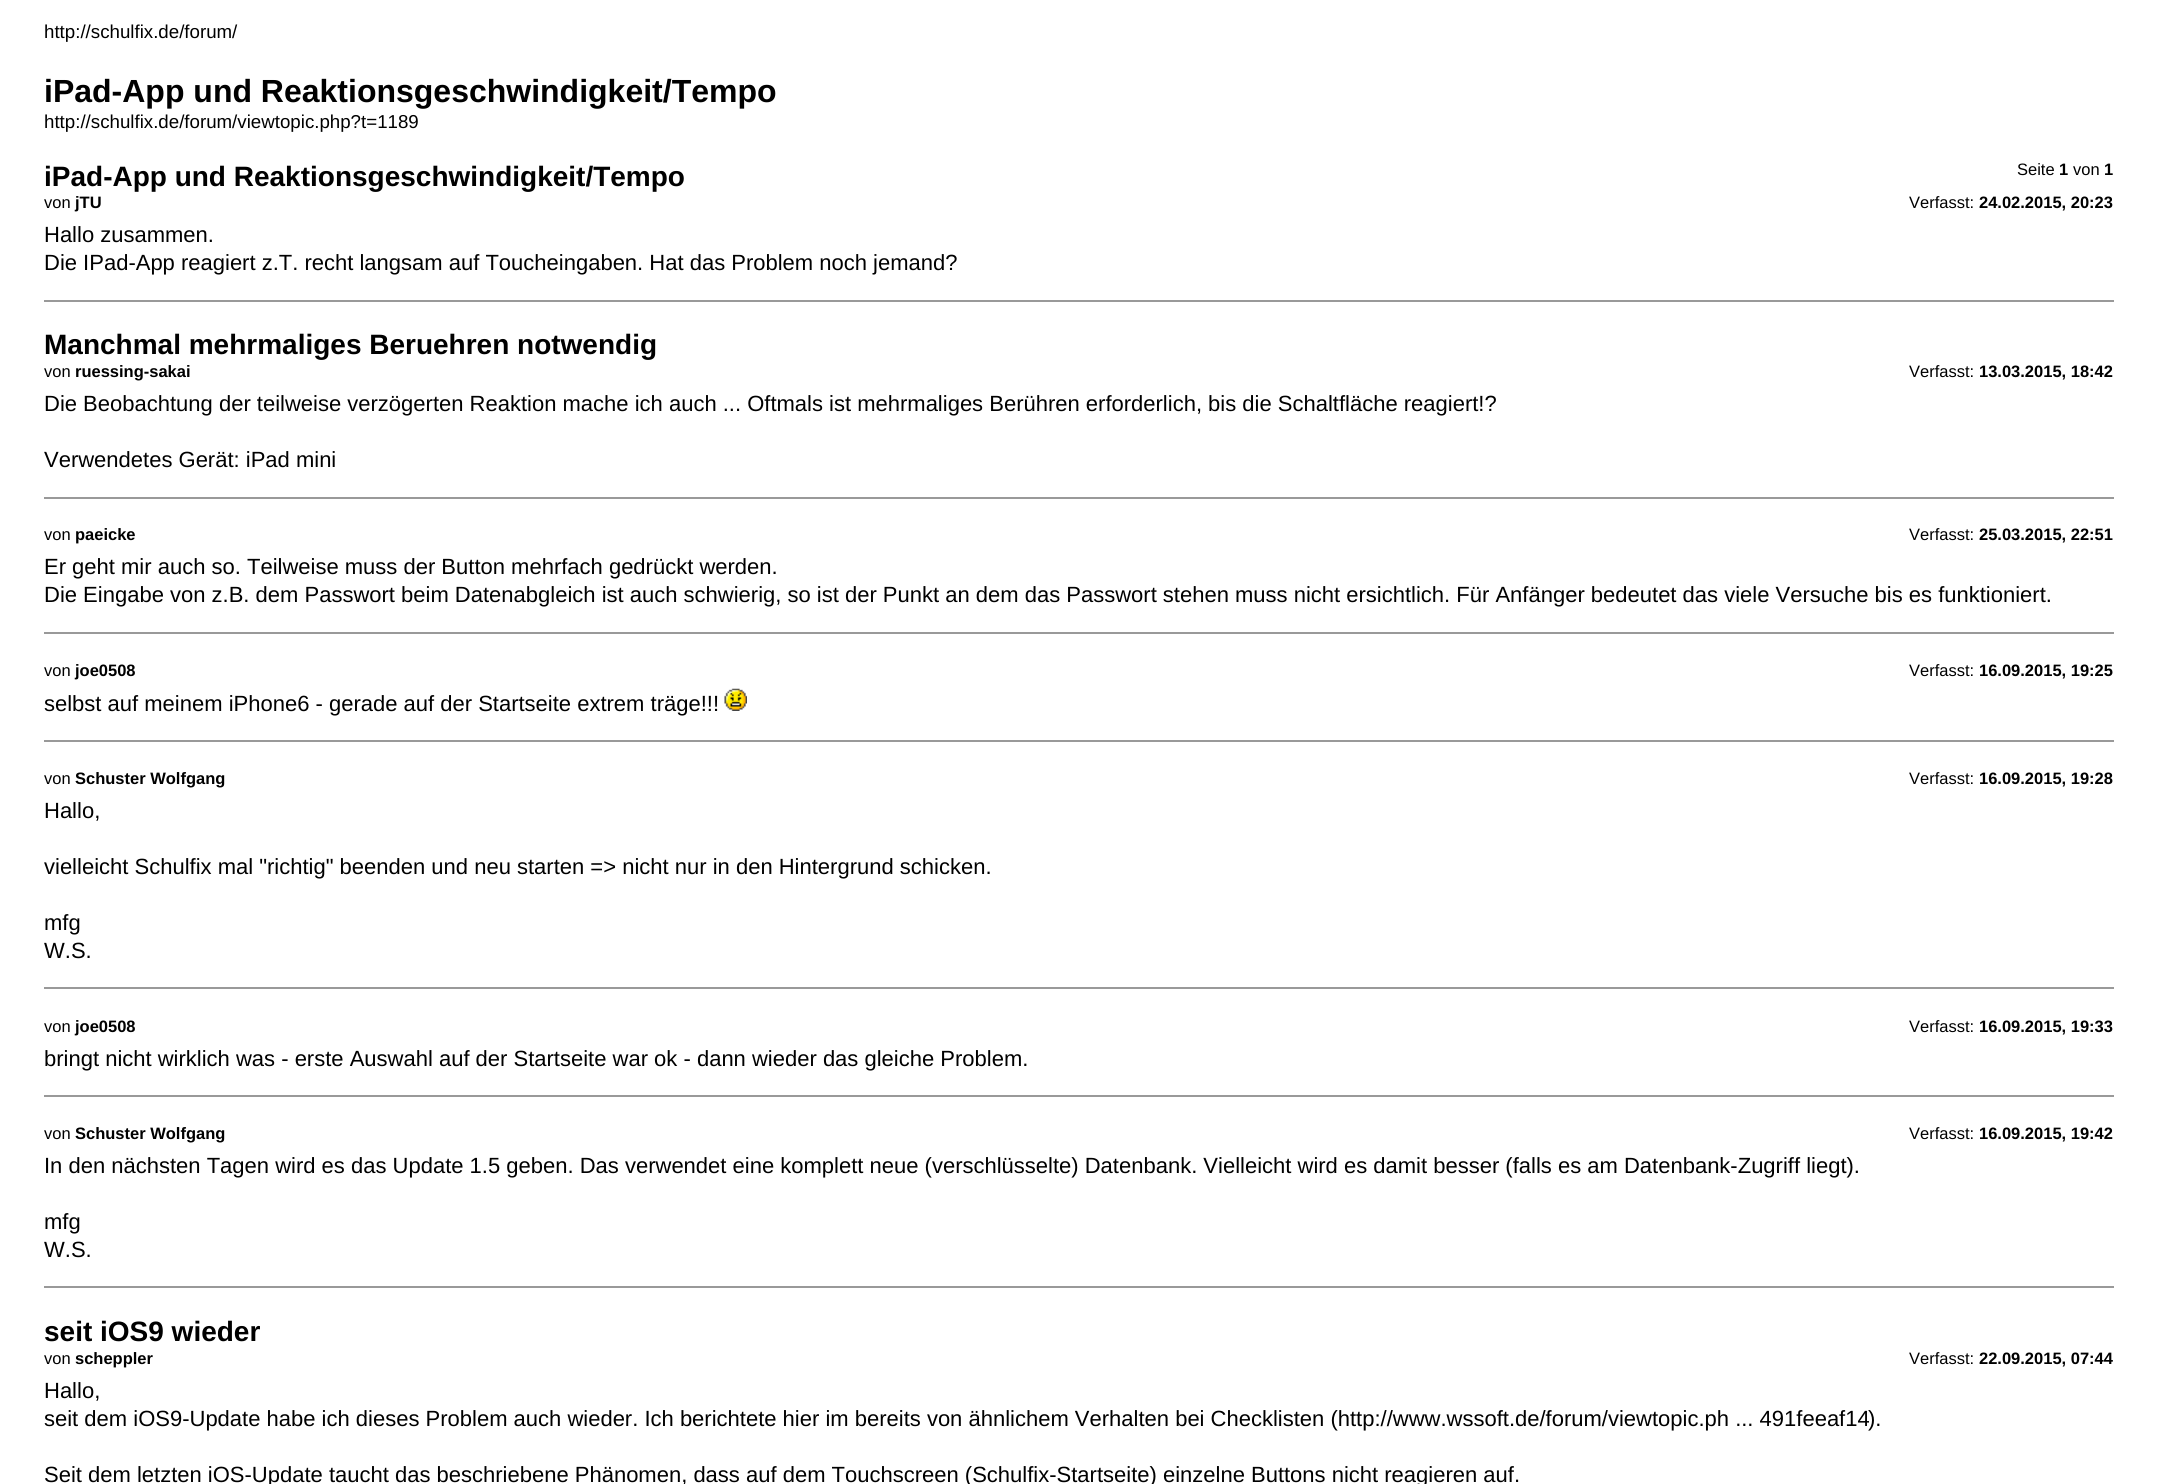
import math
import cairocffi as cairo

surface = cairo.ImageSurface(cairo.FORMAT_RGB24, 2157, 1484)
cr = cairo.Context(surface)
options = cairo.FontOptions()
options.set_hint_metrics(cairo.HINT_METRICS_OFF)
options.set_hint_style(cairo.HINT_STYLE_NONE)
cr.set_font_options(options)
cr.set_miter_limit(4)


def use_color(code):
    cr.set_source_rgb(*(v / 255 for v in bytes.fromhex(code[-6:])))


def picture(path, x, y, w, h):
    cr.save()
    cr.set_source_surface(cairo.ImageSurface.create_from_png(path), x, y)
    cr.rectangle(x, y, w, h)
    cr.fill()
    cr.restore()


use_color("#ffffff")
cr.paint()
cr.select_font_face("Liberation Sans")
cr.set_font_size(18.7)
use_color("#000000")
cr.move_to(44, 38)
cr.show_text("http://schulfix.de/forum/")
cr.select_font_face("Liberation Sans", cairo.FONT_SLANT_NORMAL, cairo.FONT_WEIGHT_BOLD)
cr.set_font_size(32)
cr.move_to(44, 102)
cr.show_text("iPad-App und Reaktionsgeschwindigkeit/Tempo")
cr.select_font_face("Liberation Sans")
cr.set_font_size(18.7)
cr.move_to(44, 128)
cr.show_text("http://schulfix.de/forum/viewtopic.php?t=1189")
cr.set_font_size(16.5)
cr.move_to(2017, 175)
cr.show_text("Seite")
cr.select_font_face("Liberation Sans", cairo.FONT_SLANT_NORMAL, cairo.FONT_WEIGHT_BOLD)
cr.move_to(2059, 175)
cr.show_text("1")
cr.select_font_face("Liberation Sans")
cr.move_to(2073, 175)
cr.show_text("von")
cr.select_font_face("Liberation Sans", cairo.FONT_SLANT_NORMAL, cairo.FONT_WEIGHT_BOLD)
cr.move_to(2104, 175)
cr.show_text("1")
cr.set_font_size(28)
cr.move_to(44, 186)
cr.show_text("iPad-App und Reaktionsgeschwindigkeit/Tempo")
cr.select_font_face("Liberation Sans")
cr.set_font_size(16.5)
cr.move_to(44, 208)
cr.show_text("von")
cr.select_font_face("Liberation Sans", cairo.FONT_SLANT_NORMAL, cairo.FONT_WEIGHT_BOLD)
cr.move_to(75, 208)
cr.show_text("jTU")
cr.select_font_face("Liberation Sans")
cr.move_to(1909, 208)
cr.show_text("Verfasst:")
cr.select_font_face("Liberation Sans", cairo.FONT_SLANT_NORMAL, cairo.FONT_WEIGHT_BOLD)
cr.move_to(1979, 208)
cr.show_text("24.02.2015, 20:23")
cr.select_font_face("Liberation Sans")
cr.set_font_size(22)
cr.move_to(44, 242)
cr.show_text("Hallo zusammen.")
cr.move_to(44, 270)
cr.show_text("Die IPad-App reagiert z.T. recht langsam auf Toucheingaben. Hat das Problem noch jemand?")
use_color("#999999")
cr.rectangle(44, 300, 2070, 2)
cr.fill()
cr.select_font_face("Liberation Sans", cairo.FONT_SLANT_NORMAL, cairo.FONT_WEIGHT_BOLD)
cr.set_font_size(28)
use_color("#000000")
cr.move_to(44, 354)
cr.show_text("Manchmal mehrmaliges Beruehren notwendig")
cr.select_font_face("Liberation Sans")
cr.set_font_size(16.5)
cr.move_to(44, 377)
cr.show_text("von")
cr.select_font_face("Liberation Sans", cairo.FONT_SLANT_NORMAL, cairo.FONT_WEIGHT_BOLD)
cr.move_to(75, 377)
cr.show_text("ruessing-sakai")
cr.select_font_face("Liberation Sans")
cr.move_to(1909, 377)
cr.show_text("Verfasst:")
cr.select_font_face("Liberation Sans", cairo.FONT_SLANT_NORMAL, cairo.FONT_WEIGHT_BOLD)
cr.move_to(1979, 377)
cr.show_text("13.03.2015, 18:42")
cr.select_font_face("Liberation Sans")
cr.set_font_size(22)
cr.move_to(44, 411)
cr.show_text("Die Beobachtung der teilweise verzögerten Reaktion mache ich auch ... Oftmals ist mehrmaliges Berühren erforderlich, bis die Schaltfläche reagiert!?")
cr.move_to(44, 467)
cr.show_text("Verwendetes Gerät: iPad mini")
use_color("#999999")
cr.rectangle(44, 497, 2070, 2)
cr.fill()
cr.set_font_size(16.5)
use_color("#000000")
cr.move_to(44, 540)
cr.show_text("von")
cr.select_font_face("Liberation Sans", cairo.FONT_SLANT_NORMAL, cairo.FONT_WEIGHT_BOLD)
cr.move_to(75, 540)
cr.show_text("paeicke")
cr.select_font_face("Liberation Sans")
cr.move_to(1909, 540)
cr.show_text("Verfasst:")
cr.select_font_face("Liberation Sans", cairo.FONT_SLANT_NORMAL, cairo.FONT_WEIGHT_BOLD)
cr.move_to(1979, 540)
cr.show_text("25.03.2015, 22:51")
cr.select_font_face("Liberation Sans")
cr.set_font_size(22)
cr.move_to(44, 574)
cr.show_text("Er geht mir auch so. Teilweise muss der Button mehrfach gedrückt werden.")
cr.move_to(44, 602)
cr.show_text("Die Eingabe von z.B. dem Passwort beim Datenabgleich ist auch schwierig, so ist der Punkt an dem das Passwort stehen muss nicht ersichtlich. Für Anfänger bedeutet das viele Versuche bis es funktioniert.")
use_color("#999999")
cr.rectangle(44, 632, 2070, 2)
cr.fill()
cr.set_font_size(16.5)
use_color("#000000")
cr.move_to(44, 676)
cr.show_text("von")
cr.select_font_face("Liberation Sans", cairo.FONT_SLANT_NORMAL, cairo.FONT_WEIGHT_BOLD)
cr.move_to(75, 676)
cr.show_text("joe0508")
cr.select_font_face("Liberation Sans")
cr.move_to(1909, 676)
cr.show_text("Verfasst:")
cr.select_font_face("Liberation Sans", cairo.FONT_SLANT_NORMAL, cairo.FONT_WEIGHT_BOLD)
cr.move_to(1979, 676)
cr.show_text("16.09.2015, 19:25")
cr.select_font_face("Liberation Sans")
cr.set_font_size(22)
cr.move_to(44, 711)
cr.show_text("selbst auf meinem iPhone6 - gerade auf der Startseite extrem träge!!!")
picture("img1.png", 724, 688, 23, 23)
use_color("#999999")
cr.rectangle(44, 740, 2070, 2)
cr.fill()
cr.set_font_size(16.5)
use_color("#000000")
cr.move_to(44, 784)
cr.show_text("von")
cr.select_font_face("Liberation Sans", cairo.FONT_SLANT_NORMAL, cairo.FONT_WEIGHT_BOLD)
cr.move_to(75, 784)
cr.show_text("Schuster Wolfgang")
cr.select_font_face("Liberation Sans")
cr.move_to(1909, 784)
cr.show_text("Verfasst:")
cr.select_font_face("Liberation Sans", cairo.FONT_SLANT_NORMAL, cairo.FONT_WEIGHT_BOLD)
cr.move_to(1979, 784)
cr.show_text("16.09.2015, 19:28")
cr.select_font_face("Liberation Sans")
cr.set_font_size(22)
cr.move_to(44, 818)
cr.show_text("Hallo,")
cr.move_to(44, 874)
cr.show_text("vielleicht Schulfix mal \"richtig\" beenden und neu starten => nicht nur in den Hintergrund schicken.")
cr.move_to(44, 930)
cr.show_text("mfg")
cr.move_to(44, 958)
cr.show_text("W.S.")
use_color("#999999")
cr.rectangle(44, 987, 2070, 2)
cr.fill()
cr.set_font_size(16.5)
use_color("#000000")
cr.move_to(44, 1032)
cr.show_text("von")
cr.select_font_face("Liberation Sans", cairo.FONT_SLANT_NORMAL, cairo.FONT_WEIGHT_BOLD)
cr.move_to(75, 1032)
cr.show_text("joe0508")
cr.select_font_face("Liberation Sans")
cr.move_to(1909, 1032)
cr.show_text("Verfasst:")
cr.select_font_face("Liberation Sans", cairo.FONT_SLANT_NORMAL, cairo.FONT_WEIGHT_BOLD)
cr.move_to(1979, 1032)
cr.show_text("16.09.2015, 19:33")
cr.select_font_face("Liberation Sans")
cr.set_font_size(22)
cr.move_to(44, 1066)
cr.show_text("bringt nicht wirklich was - erste Auswahl auf der Startseite war ok - dann wieder das gleiche Problem.")
use_color("#999999")
cr.rectangle(44, 1095, 2070, 2)
cr.fill()
cr.set_font_size(16.5)
use_color("#000000")
cr.move_to(44, 1139)
cr.show_text("von")
cr.select_font_face("Liberation Sans", cairo.FONT_SLANT_NORMAL, cairo.FONT_WEIGHT_BOLD)
cr.move_to(75, 1139)
cr.show_text("Schuster Wolfgang")
cr.select_font_face("Liberation Sans")
cr.move_to(1909, 1139)
cr.show_text("Verfasst:")
cr.select_font_face("Liberation Sans", cairo.FONT_SLANT_NORMAL, cairo.FONT_WEIGHT_BOLD)
cr.move_to(1979, 1139)
cr.show_text("16.09.2015, 19:42")
cr.select_font_face("Liberation Sans")
cr.set_font_size(22)
cr.move_to(44, 1173)
cr.show_text("In den nächsten Tagen wird es das Update 1.5 geben. Das verwendet eine komplett neue (verschlüsselte) Datenbank. Vielleicht wird es damit besser (falls es am Datenbank-Zugriff liegt).")
cr.move_to(44, 1229)
cr.show_text("mfg")
cr.move_to(44, 1257)
cr.show_text("W.S.")
use_color("#999999")
cr.rectangle(44, 1286, 2070, 2)
cr.fill()
cr.select_font_face("Liberation Sans", cairo.FONT_SLANT_NORMAL, cairo.FONT_WEIGHT_BOLD)
cr.set_font_size(28)
use_color("#000000")
cr.move_to(44, 1341)
cr.show_text("seit iOS9 wieder")
cr.select_font_face("Liberation Sans")
cr.set_font_size(16.5)
cr.move_to(44, 1364)
cr.show_text("von")
cr.select_font_face("Liberation Sans", cairo.FONT_SLANT_NORMAL, cairo.FONT_WEIGHT_BOLD)
cr.move_to(75, 1364)
cr.show_text("scheppler")
cr.select_font_face("Liberation Sans")
cr.move_to(1909, 1364)
cr.show_text("Verfasst:")
cr.select_font_face("Liberation Sans", cairo.FONT_SLANT_NORMAL, cairo.FONT_WEIGHT_BOLD)
cr.move_to(1979, 1364)
cr.show_text("22.09.2015, 07:44")
cr.select_font_face("Liberation Sans")
cr.set_font_size(22)
cr.move_to(44, 1398)
cr.show_text("Hallo,")
cr.move_to(44, 1426)
cr.show_text("seit dem iOS9-Update habe ich dieses Problem auch wieder. Ich berichtete hier im bereits von ähnlichem Verhalten bei Checklisten (http://www.wssoft.de/forum/viewtopic.ph ... 491feeaf14")
cr.move_to(1868, 1426)
cr.show_text(").")
cr.move_to(44, 1482)
cr.show_text("Seit dem letzten iOS-Update taucht das beschriebene Phänomen, dass auf dem Touchscreen (Schulfix-Startseite) einzelne Buttons nicht reagieren auf.")
surface.write_to_png("result.png")
